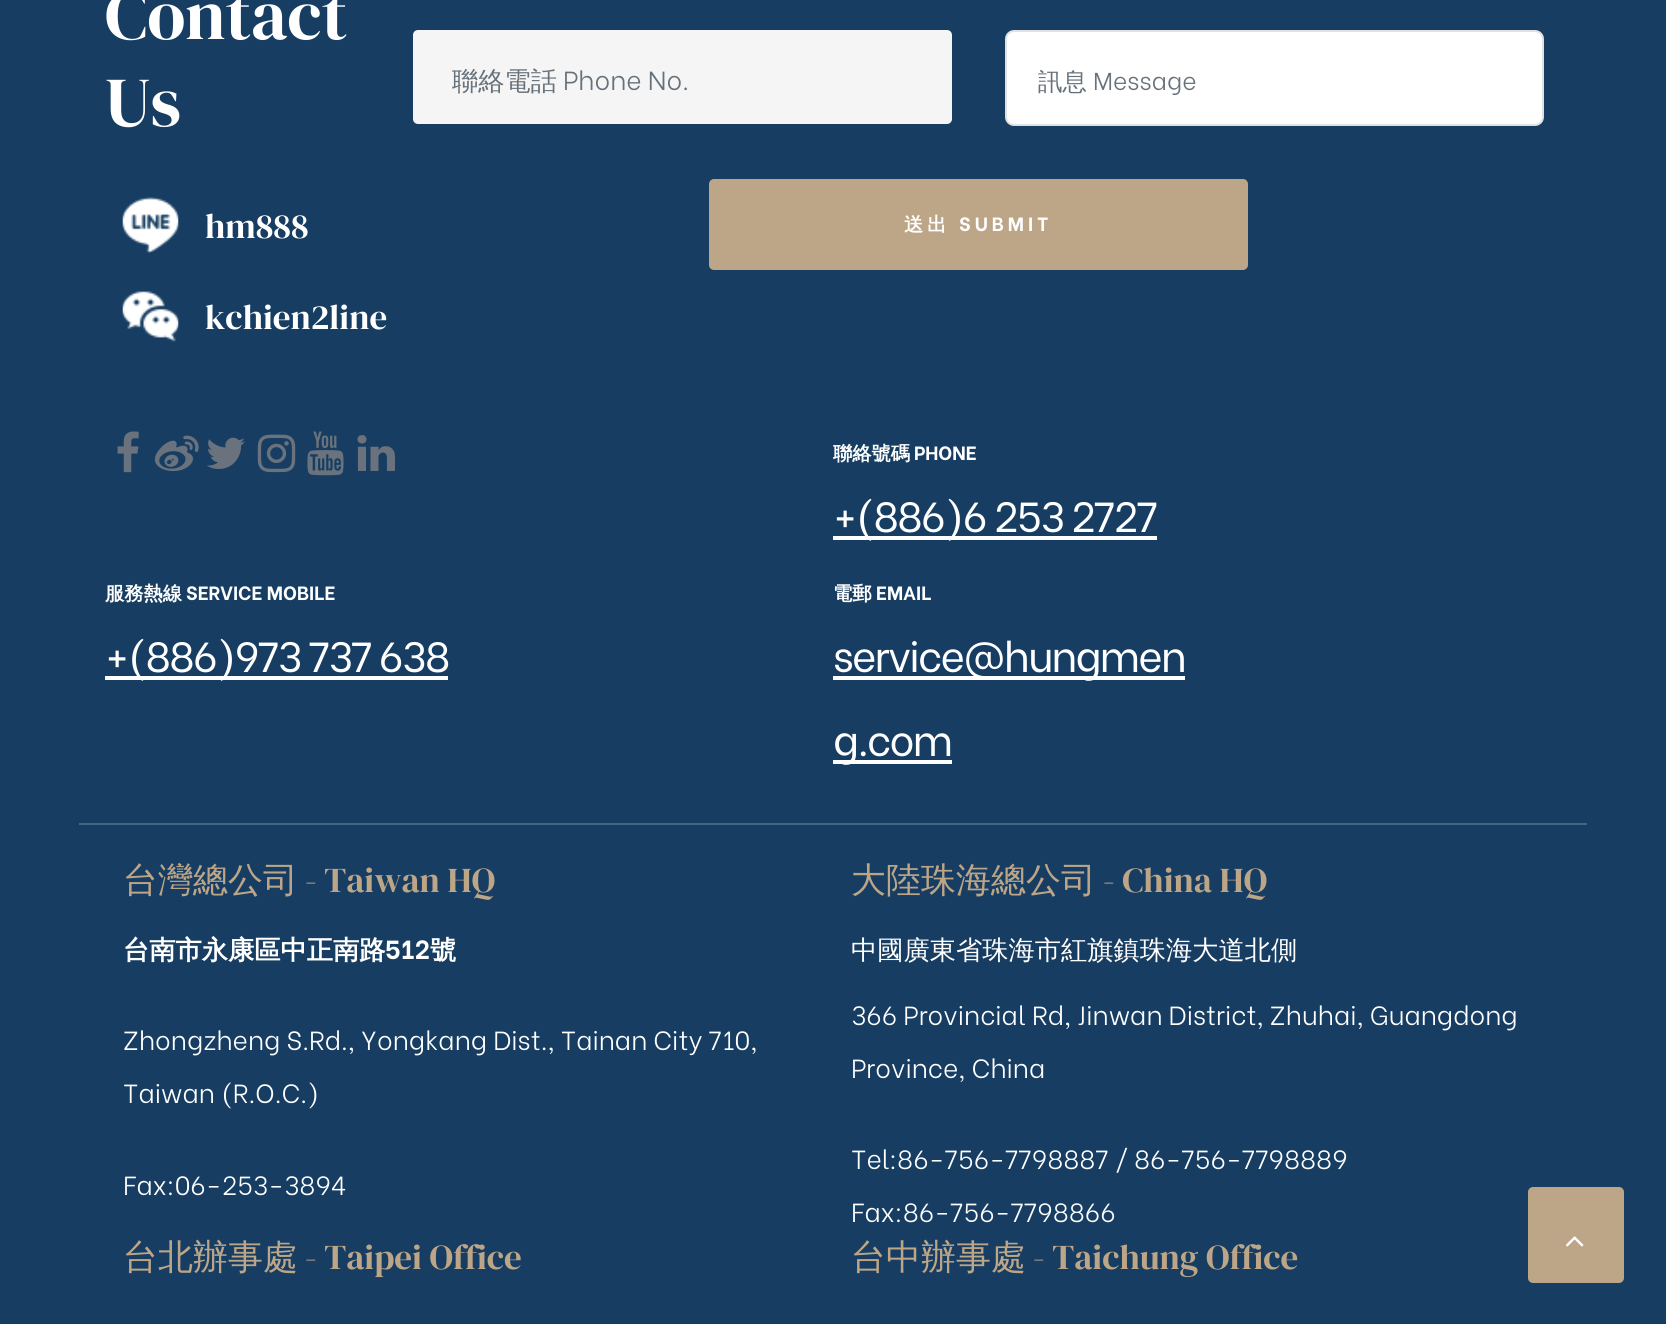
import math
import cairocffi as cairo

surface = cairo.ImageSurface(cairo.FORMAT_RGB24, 1666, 1324)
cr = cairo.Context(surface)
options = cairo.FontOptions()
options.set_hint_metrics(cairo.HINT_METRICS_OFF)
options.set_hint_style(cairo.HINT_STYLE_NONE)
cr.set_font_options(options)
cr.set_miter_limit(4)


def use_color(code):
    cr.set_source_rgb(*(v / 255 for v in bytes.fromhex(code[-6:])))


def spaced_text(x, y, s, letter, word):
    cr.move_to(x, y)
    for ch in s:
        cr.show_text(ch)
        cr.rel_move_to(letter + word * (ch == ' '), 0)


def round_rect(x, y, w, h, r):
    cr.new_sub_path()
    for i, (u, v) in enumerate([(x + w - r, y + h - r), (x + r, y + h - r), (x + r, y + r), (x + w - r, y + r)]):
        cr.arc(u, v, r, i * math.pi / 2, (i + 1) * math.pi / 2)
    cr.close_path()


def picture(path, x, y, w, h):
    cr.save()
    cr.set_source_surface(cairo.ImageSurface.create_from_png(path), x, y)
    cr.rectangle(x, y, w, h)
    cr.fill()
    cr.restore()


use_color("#ffffff")
cr.paint()
gradient = cairo.LinearGradient(833, -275, 833, 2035)
gradient.add_color_stop_rgba(0.8, 0.09, 0.243, 0.384, 1)
gradient.add_color_stop_rgba(1, 0.741, 0.647, 0.533, 1)
cr.set_source(gradient)
cr.rectangle(0, 0, 1666, 1324)
cr.fill()
cr.select_font_face("DM Serif Display")
cr.set_font_size(70)
use_color("#ffffff")
cr.move_to(105, 39)
cr.show_text("Contact")
cr.move_to(105, 126)
cr.show_text("Us")
picture("img1.png", 122, 197, 57, 56)
cr.set_font_size(35)
cr.move_to(205, 238)
cr.show_text("hm888")
picture("img2.png", 122, 291, 57, 51)
cr.move_to(205, 329)
cr.show_text("kchien2line")
use_color("#f5f5f5")
round_rect(413, 30, 539, 94, 5)
cr.fill()
cr.select_font_face("WenQuanYi Zen Hei Medium")
cr.set_font_size(26.25)
use_color("#66717a")
cr.move_to(452, 90)
cr.show_text("聯絡電話")
cr.select_font_face("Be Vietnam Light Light")
cr.move_to(563, 90)
cr.show_text("Phone No.")
use_color("#ffffff")
round_rect(1006, 31, 537, 94, 8)
cr.fill_preserve()
use_color("#e1e1e1")
cr.stroke()
cr.select_font_face("WenQuanYi Zen Hei Medium")
cr.set_font_size(24.5)
use_color("#66717a")
cr.move_to(1038, 90)
cr.show_text("訊息")
cr.select_font_face("Be Vietnam Light Light")
cr.move_to(1093, 90)
cr.show_text("Message")
use_color("#bda588")
round_rect(710, 180, 537, 89, 4)
cr.fill_preserve()
cr.stroke()
cr.select_font_face("WenQuanYi Zen Hei", cairo.FONT_SLANT_NORMAL, cairo.FONT_WEIGHT_BOLD)
cr.set_font_size(19.25)
use_color("#ffffff")
spaced_text(904, 231, "送出", 4, 0)
cr.select_font_face("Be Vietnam", cairo.FONT_SLANT_NORMAL, cairo.FONT_WEIGHT_BOLD)
spaced_text(959, 231, "SUBMIT", 4, 0)
use_color("#456581")
cr.rectangle(79, 823, 1508, 2)
cr.fill()
picture("img3.png", 117, 431, 22, 42)
picture("img4.png", 154, 435, 45, 37)
picture("img5.png", 206, 437, 39, 32)
picture("img6.png", 257, 434, 39, 39)
picture("img7.png", 307, 431, 37, 45)
picture("img8.png", 357, 435, 38, 36)
cr.select_font_face("WenQuanYi Zen Hei", cairo.FONT_SLANT_NORMAL, cairo.FONT_WEIGHT_BOLD)
use_color("#ffffff")
cr.move_to(833, 460)
cr.show_text("聯絡號碼")
cr.select_font_face("Be Vietnam", cairo.FONT_SLANT_NORMAL, cairo.FONT_WEIGHT_BOLD)
cr.move_to(914, 460)
cr.show_text("PHONE")
cr.rectangle(833, 536, 324, 4)
cr.fill()
cr.select_font_face("Be Vietnam")
cr.set_font_size(42)
spaced_text(833, 532, "+(886)6 253 2727", -1.75, 0)
cr.select_font_face("WenQuanYi Zen Hei", cairo.FONT_SLANT_NORMAL, cairo.FONT_WEIGHT_BOLD)
cr.set_font_size(19.25)
cr.move_to(105, 600)
cr.show_text("服務熱線")
cr.select_font_face("Be Vietnam", cairo.FONT_SLANT_NORMAL, cairo.FONT_WEIGHT_BOLD)
cr.move_to(186, 600)
cr.show_text("SERVICE MOBILE")
cr.rectangle(105, 676, 343, 4)
cr.fill()
cr.select_font_face("Be Vietnam")
cr.set_font_size(42)
spaced_text(105, 672, "+(886)973 737 638", -1.75, 0)
cr.select_font_face("WenQuanYi Zen Hei", cairo.FONT_SLANT_NORMAL, cairo.FONT_WEIGHT_BOLD)
cr.set_font_size(19.25)
cr.move_to(833, 600)
cr.show_text("電郵")
cr.select_font_face("Be Vietnam", cairo.FONT_SLANT_NORMAL, cairo.FONT_WEIGHT_BOLD)
cr.move_to(876, 600)
cr.show_text("EMAIL")
cr.rectangle(833, 676, 352, 4)
cr.fill()
cr.select_font_face("Be Vietnam")
cr.set_font_size(42)
spaced_text(833, 672, "service@hungmen", -1.75, 0)
cr.rectangle(833, 760, 119, 4)
cr.fill()
spaced_text(833, 756, "g.com", -1.75, 0)
cr.select_font_face("WenQuanYi Zen Hei Medium")
cr.set_font_size(35)
use_color("#bda588")
cr.move_to(123, 892)
cr.show_text("台灣總公司")
cr.select_font_face("DM Serif Display")
cr.move_to(305, 892)
cr.show_text("- Taiwan HQ")
cr.select_font_face("WenQuanYi Zen Hei", cairo.FONT_SLANT_NORMAL, cairo.FONT_WEIGHT_BOLD)
cr.set_font_size(26.25)
use_color("#ffffff")
cr.move_to(123, 959)
cr.show_text("台南市永康區中正南路")
cr.select_font_face("Be Vietnam", cairo.FONT_SLANT_NORMAL, cairo.FONT_WEIGHT_BOLD)
cr.move_to(385, 959)
cr.show_text("512")
cr.select_font_face("WenQuanYi Zen Hei", cairo.FONT_SLANT_NORMAL, cairo.FONT_WEIGHT_BOLD)
cr.move_to(430, 959)
cr.show_text("號")
cr.select_font_face("Be Vietnam Light Light")
cr.move_to(123, 1050)
cr.show_text("Zhongzheng S.Rd., Yongkang Dist., Tainan City 710,")
cr.move_to(123, 1103)
cr.show_text("Taiwan (R.O.C.)")
cr.move_to(123, 1195)
cr.show_text("Fax:06-253-3894")
cr.select_font_face("WenQuanYi Zen Hei Medium")
cr.set_font_size(35)
use_color("#bda588")
cr.move_to(851, 892)
cr.show_text("大陸珠海總公司")
cr.select_font_face("DM Serif Display")
cr.move_to(1103, 892)
cr.show_text("- China HQ")
cr.select_font_face("WenQuanYi Zen Hei Medium")
cr.set_font_size(26.25)
use_color("#ffffff")
cr.move_to(851, 959)
cr.show_text("中國廣東省珠海市紅旗鎮珠海大道北側")
cr.select_font_face("Be Vietnam Light Light")
cr.move_to(851, 1025)
cr.show_text("366 Provincial Rd, Jinwan District, Zhuhai, Guangdong")
cr.move_to(851, 1078)
cr.show_text("Province, China")
cr.move_to(851, 1169)
cr.show_text("Tel:86-756-7798887 / 86-756-7798889")
cr.move_to(851, 1222)
cr.show_text("Fax:86-756-7798866")
cr.select_font_face("WenQuanYi Zen Hei Medium")
cr.set_font_size(35)
use_color("#bda588")
cr.move_to(123, 1269)
cr.show_text("台北辦事處")
cr.select_font_face("DM Serif Display")
cr.move_to(305, 1269)
cr.show_text("- Taipei Office")
cr.select_font_face("WenQuanYi Zen Hei Medium")
cr.move_to(851, 1269)
cr.show_text("台中辦事處")
cr.select_font_face("DM Serif Display")
cr.move_to(1033, 1269)
cr.show_text("- Taichung Office")
round_rect(1529, 1188, 94, 94, 4)
cr.fill_preserve()
cr.stroke()
picture("img9.png", 1565, 1236, 19, 11)
surface.write_to_png("result.png")
